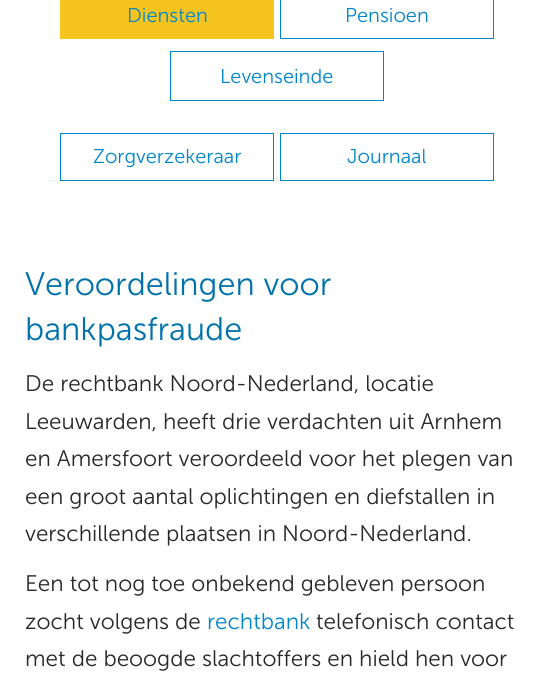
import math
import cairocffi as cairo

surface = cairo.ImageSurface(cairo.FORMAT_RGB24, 553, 696)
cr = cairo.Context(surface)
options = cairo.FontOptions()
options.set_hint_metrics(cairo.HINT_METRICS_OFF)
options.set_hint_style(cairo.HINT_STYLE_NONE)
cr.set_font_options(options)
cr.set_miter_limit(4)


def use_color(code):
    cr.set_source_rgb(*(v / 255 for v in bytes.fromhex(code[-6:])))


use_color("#ffffff")
cr.paint()
use_color("#f5c41f")
cr.rectangle(60, 0, 214, 39)
cr.fill()
cr.select_font_face("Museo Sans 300 Light")
cr.set_font_size(20)
use_color("#0086cb")
cr.move_to(127, 22)
cr.show_text("Diensten")
cr.rectangle(280.5, -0.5, 213, 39)
cr.set_line_width(1)
cr.stroke()
cr.move_to(345, 22)
cr.show_text("Pensioen")
cr.rectangle(170.5, 51.5, 213, 49)
cr.stroke()
cr.move_to(220, 83)
cr.show_text("Levenseinde")
cr.rectangle(60.5, 133.5, 213, 47)
cr.stroke()
cr.move_to(93, 163)
cr.show_text("Zorgverzekeraar")
cr.rectangle(280.5, 133.5, 213, 47)
cr.stroke()
cr.move_to(347, 163)
cr.show_text("Journaal")
cr.set_font_size(32.5)
use_color("#0072ab")
cr.move_to(25, 295)
cr.show_text("Veroordelingen voor")
cr.move_to(25, 340)
cr.show_text("bankpasfraude")
cr.set_font_size(22.5)
use_color("#282828")
cr.move_to(25, 391)
cr.show_text("De rechtbank Noord-Nederland, locatie")
cr.move_to(25, 429)
cr.show_text("Leeuwarden, heeft drie verdachten uit Arnhem")
cr.move_to(25, 466)
cr.show_text("en Amersfoort veroordeeld voor het plegen van")
cr.move_to(25, 504)
cr.show_text("een groot aantal oplichtingen en diefstallen in")
cr.move_to(25, 541)
cr.show_text("verschillende plaatsen in Noord-Nederland.")
cr.move_to(25, 591)
cr.show_text("Een tot nog toe onbekend gebleven persoon")
cr.move_to(25, 629)
cr.show_text("zocht volgens de")
use_color("#0086cb")
cr.move_to(207, 629)
cr.show_text("rechtbank")
use_color("#282828")
cr.move_to(316, 629)
cr.show_text("telefonisch contact")
cr.move_to(25, 666)
cr.show_text("met de beoogde slachtoffers en hield hen voor")
surface.write_to_png("result.png")
